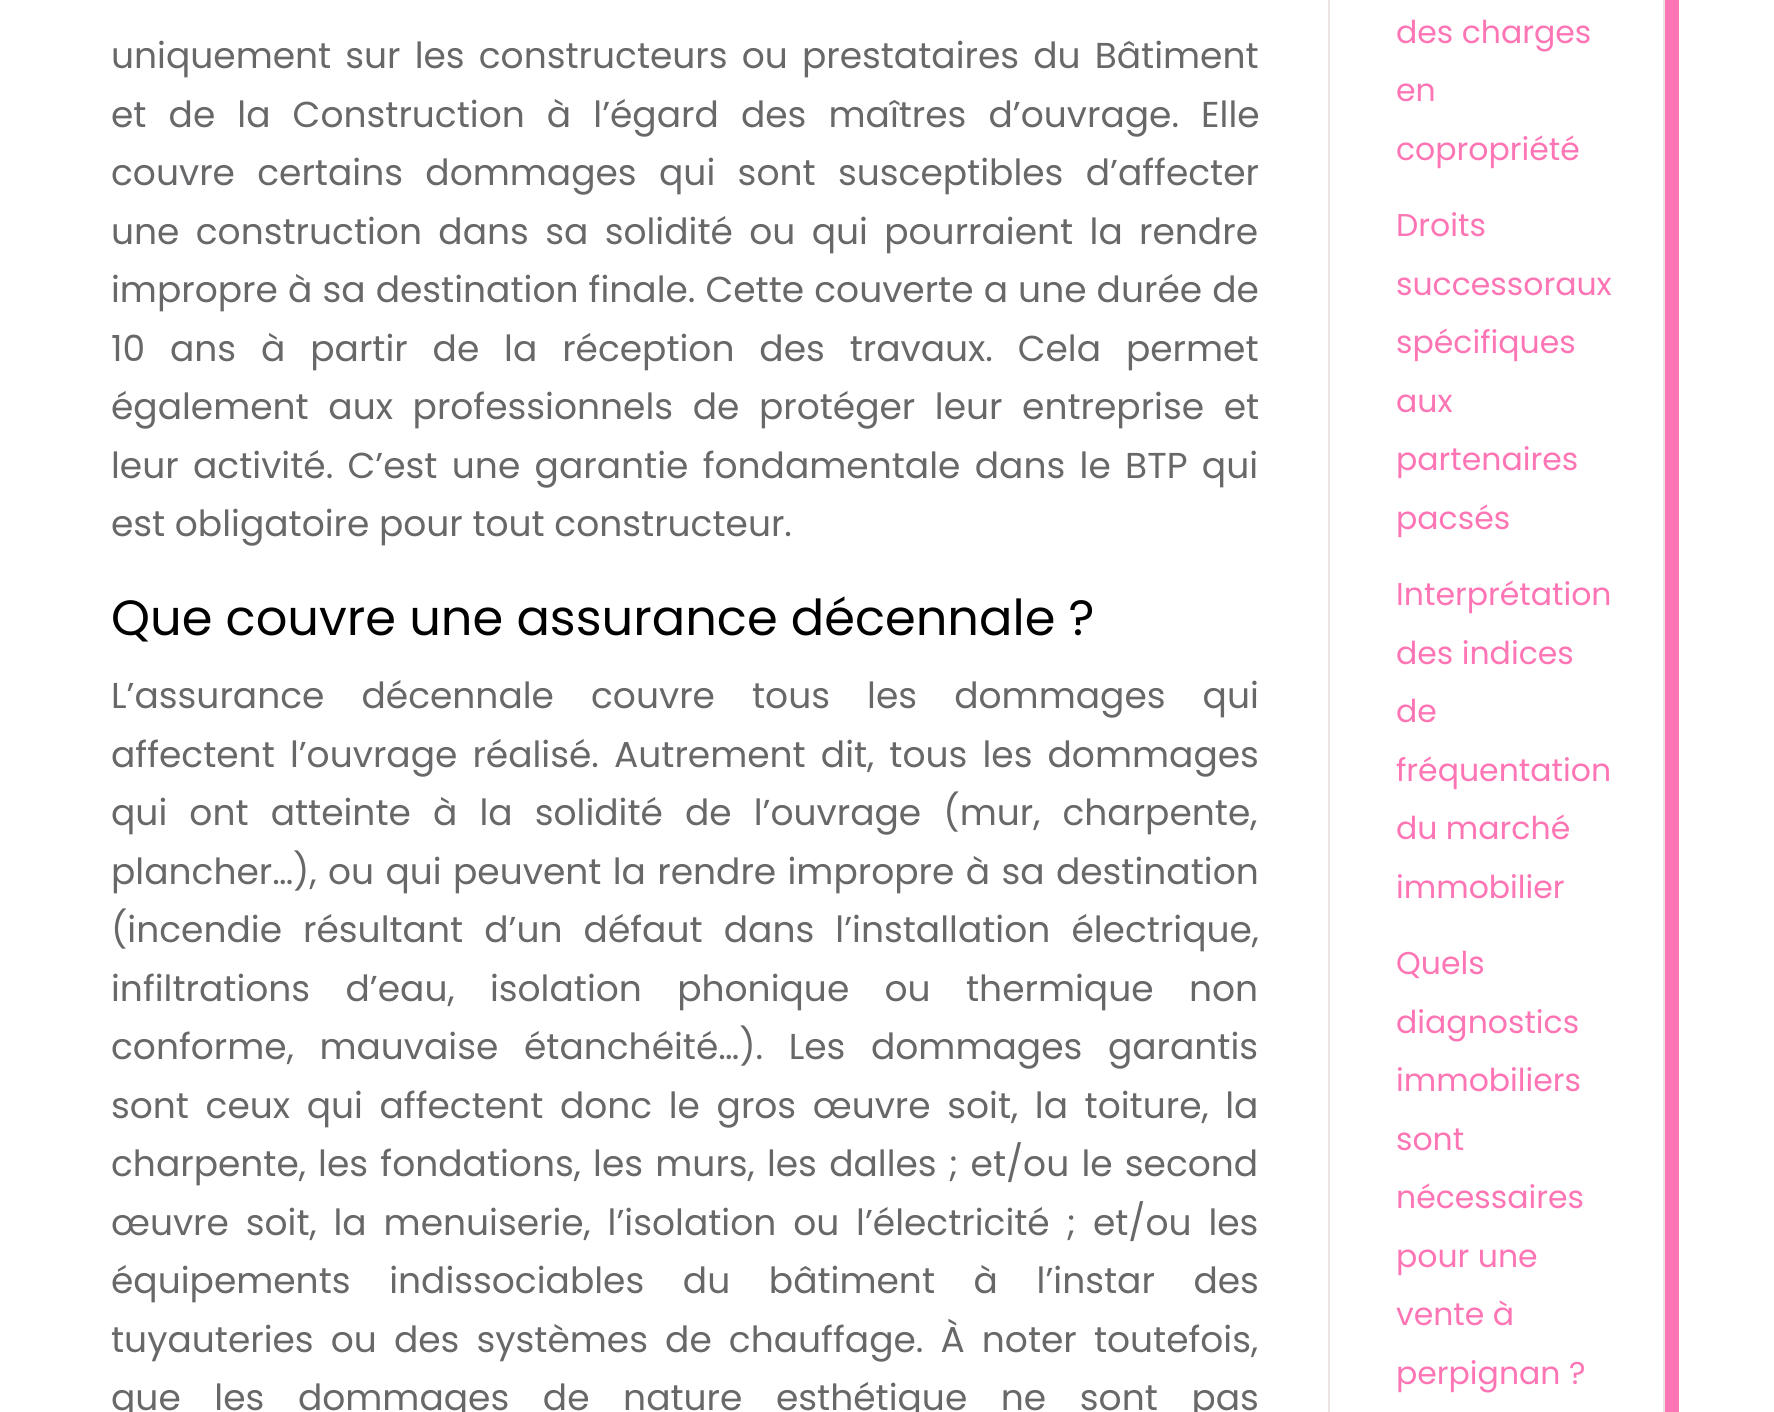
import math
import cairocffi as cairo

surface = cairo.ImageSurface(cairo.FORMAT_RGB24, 1774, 1412)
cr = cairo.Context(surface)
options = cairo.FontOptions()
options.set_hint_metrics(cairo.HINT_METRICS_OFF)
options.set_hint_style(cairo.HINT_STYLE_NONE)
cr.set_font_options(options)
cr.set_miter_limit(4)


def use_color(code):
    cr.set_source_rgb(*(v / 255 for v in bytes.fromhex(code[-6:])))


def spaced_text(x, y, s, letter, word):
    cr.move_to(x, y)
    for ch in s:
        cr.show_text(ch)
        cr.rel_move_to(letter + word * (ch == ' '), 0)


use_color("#ffffff")
cr.paint()
cr.select_font_face("Poppins")
cr.set_font_size(36)
use_color("#68686a")
spaced_text(111, 68, "uniquement sur les constructeurs ou prestataires du Bâtiment", 0, 4.5)
spaced_text(111, 127, "et de la Construction à l’égard des maîtres d’ouvrage. Elle", 0, 12.5)
spaced_text(111, 185, "couvre certains dommages qui sont susceptibles d’affecter", 0, 12.75)
spaced_text(111, 244, "une construction dans sa solidité ou qui pourraient la rendre", 0, 6.75)
spaced_text(111, 302, "impropre à sa destination finale. Cette couverte a une durée de", 0, 0.5)
spaced_text(111, 361, "10 ans à partir de la réception des travaux. Cela permet", 0, 15.25)
spaced_text(111, 419, "également aux professionnels de protéger leur entreprise et", 0, 10)
spaced_text(111, 478, "leur activité. C’est une garantie fondamentale dans le BTP qui", 0, 4.75)
cr.move_to(111, 536)
cr.show_text("est obligatoire pour tout constructeur.")
cr.set_font_size(49.5)
use_color("#000000")
cr.move_to(111, 635)
cr.show_text("Que couvre une assurance décennale ?")
cr.set_font_size(36)
use_color("#68686a")
spaced_text(111, 708, "L’assurance décennale couvre tous les dommages qui", 0, 27.5)
spaced_text(111, 767, "affectent l’ouvrage réalisé. Autrement dit, tous les dommages", 0, 5.5)
spaced_text(111, 825, "qui ont atteinte à la solidité de l’ouvrage (mur, charpente,", 0, 12.5)
spaced_text(111, 884, "plancher…), ou qui peuvent la rendre impropre à sa destination", 0, 1.75)
spaced_text(111, 942, "(incendie résultant d’un défaut dans l’installation électrique,", 0, 11.5)
spaced_text(111, 1001, "infiltrations d’eau, isolation phonique ou thermique non", 0, 25.75)
spaced_text(111, 1059, "conforme, mauvaise étanchéité…). Les dommages garantis", 0, 16)
spaced_text(111, 1118, "sont ceux qui affectent donc le gros œuvre soit, la toiture, la", 0, 7)
spaced_text(111, 1176, "charpente, les fondations, les murs, les dalles ; et/ou le second", 0, 2.6)
spaced_text(111, 1235, "œuvre soit, la menuiserie, l’isolation ou l’électricité ; et/ou les", 0, 7.25)
spaced_text(111, 1293, "équipements indissociables du bâtiment à l’instar des", 0, 29)
spaced_text(111, 1352, "tuyauteries ou des systèmes de chauffage. À noter toutefois,", 0, 7.5)
spaced_text(111, 1410, "que les dommages de nature esthétique ne sont pas", 0, 24)
cr.rectangle(1329, -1, 335, 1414)
use_color("#ece3e3")
cr.stroke()
cr.set_font_size(31.5)
use_color("#fd75b4")
cr.move_to(1396, 43)
cr.show_text("des charges")
cr.move_to(1396, 101)
cr.show_text("en")
cr.move_to(1396, 160)
cr.show_text("copropriété")
cr.move_to(1396, 236)
cr.show_text("Droits")
cr.move_to(1396, 295)
cr.show_text("successoraux")
cr.move_to(1396, 353)
cr.show_text("spécifiques")
cr.move_to(1396, 412)
cr.show_text("aux")
cr.move_to(1396, 470)
cr.show_text("partenaires")
cr.move_to(1396, 529)
cr.show_text("pacsés")
cr.move_to(1396, 605)
cr.show_text("Interprétation")
cr.move_to(1396, 664)
cr.show_text("des indices")
cr.move_to(1396, 722)
cr.show_text("de")
cr.move_to(1396, 781)
cr.show_text("fréquentation")
cr.move_to(1396, 839)
cr.show_text("du marché")
cr.move_to(1396, 898)
cr.show_text("immobilier")
cr.move_to(1396, 974)
cr.show_text("Quels")
cr.move_to(1396, 1033)
cr.show_text("diagnostics")
cr.move_to(1396, 1091)
cr.show_text("immobiliers")
cr.move_to(1396, 1150)
cr.show_text("sont")
cr.move_to(1396, 1208)
cr.show_text("nécessaires")
cr.move_to(1396, 1267)
cr.show_text("pour une")
cr.move_to(1396, 1325)
cr.show_text("vente à")
cr.move_to(1396, 1384)
cr.show_text("perpignan ?")
cr.rectangle(1665, 0, 14, 1412)
cr.fill()
surface.write_to_png("result.png")
